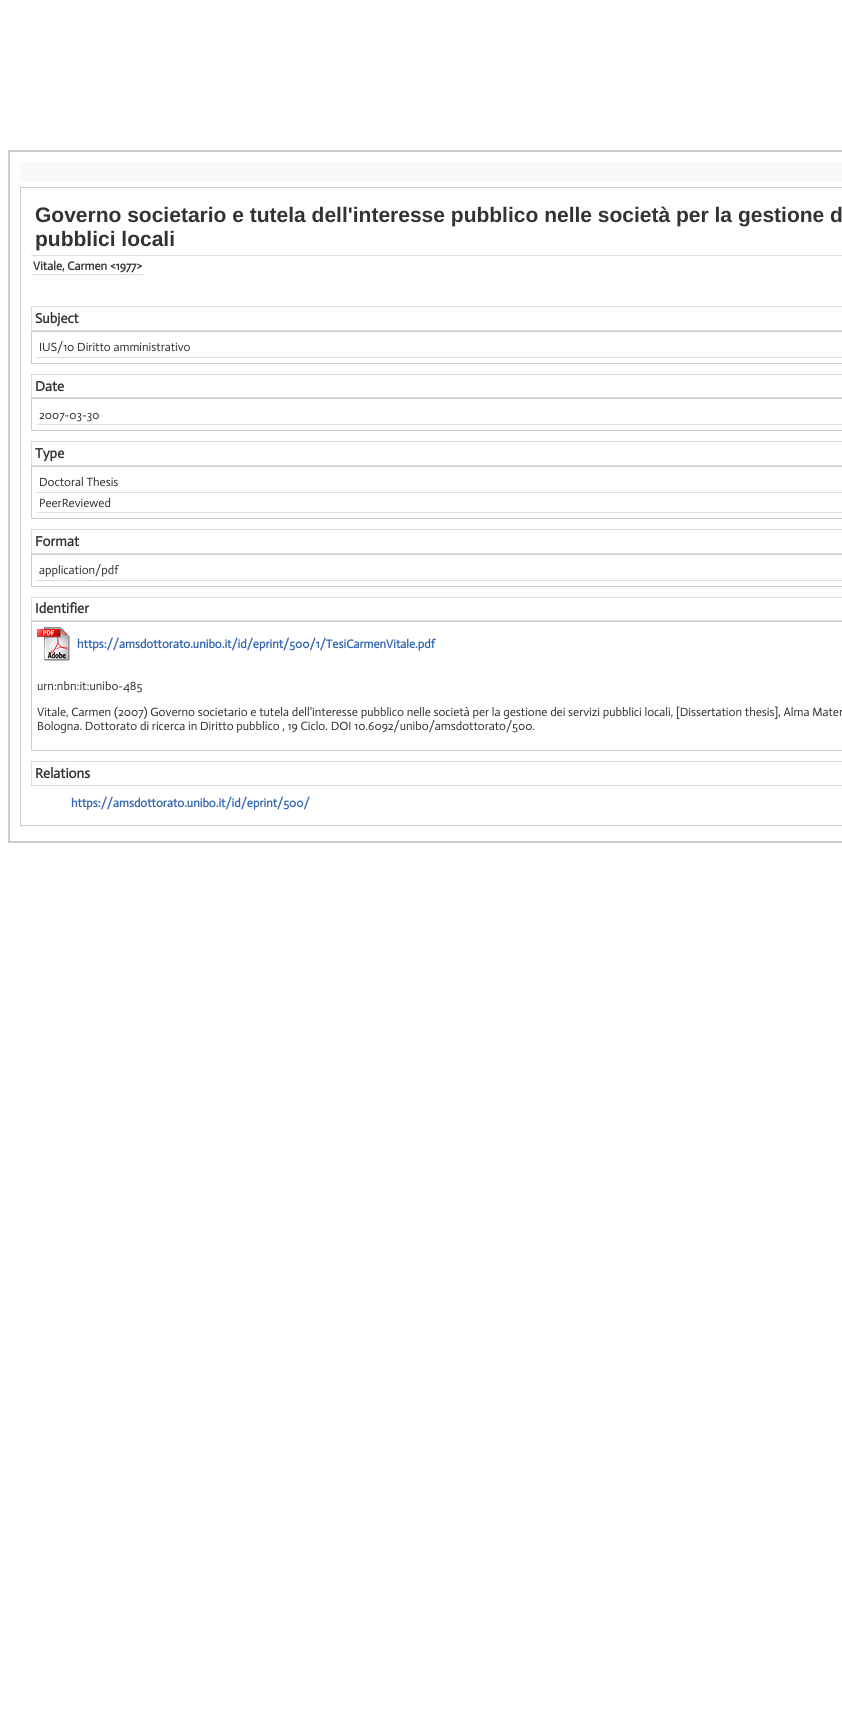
import math
import cairocffi as cairo

surface = cairo.ImageSurface(cairo.FORMAT_RGB24, 842, 1722)
cr = cairo.Context(surface)
options = cairo.FontOptions()
options.set_hint_metrics(cairo.HINT_METRICS_OFF)
options.set_hint_style(cairo.HINT_STYLE_NONE)
cr.set_font_options(options)
cr.set_miter_limit(4)


def use_color(code):
    cr.set_source_rgb(*(v / 255 for v in bytes.fromhex(code[-6:])))


def picture(path, x, y, w, h):
    cr.save()
    cr.set_source_surface(cairo.ImageSurface.create_from_png(path), x, y)
    cr.rectangle(x, y, w, h)
    cr.fill()
    cr.restore()


use_color("#ffffff")
cr.paint()
cr.rectangle(9, 151, 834, 691)
use_color("#cccccc")
cr.stroke()
use_color("#f9f9f9")
cr.rectangle(20, 162, 822, 20)
cr.fill()
cr.rectangle(20.5, 187.5, 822, 638)
use_color("#cccccc")
cr.set_line_width(1)
cr.stroke()
use_color("#dddddd")
cr.rectangle(31, 255, 811, 1)
cr.fill()
cr.select_font_face("Liberation Sans", cairo.FONT_SLANT_NORMAL, cairo.FONT_WEIGHT_BOLD)
cr.set_font_size(21)
use_color("#333333")
cr.move_to(35, 222)
cr.show_text("Governo societario e tutela dell'interesse pubblico nelle società per la gestione d")
cr.move_to(35, 246)
cr.show_text("pubblici locali")
use_color("#dddddd")
cr.rectangle(31, 274, 114, 1)
cr.fill()
cr.select_font_face("Actor", cairo.FONT_SLANT_NORMAL, cairo.FONT_WEIGHT_BOLD)
cr.set_font_size(12)
use_color("#333333")
cr.move_to(33, 270)
cr.show_text("Vitale, Carmen <1977>")
cr.rectangle(31.5, 306.5, 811, 24)
use_color("#dddddd")
cr.stroke()
cr.set_font_size(14)
use_color("#333333")
cr.move_to(35, 323)
cr.show_text("Subject")
cr.rectangle(31.5, 331.5, 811, 32)
use_color("#cccccc")
cr.stroke()
use_color("#dddddd")
cr.rectangle(37, 357, 805, 1)
cr.fill()
cr.select_font_face("Actor")
cr.set_font_size(12)
use_color("#333333")
cr.move_to(39, 351)
cr.show_text("IUS/10 Diritto amministrativo")
cr.rectangle(31.5, 374.5, 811, 23)
use_color("#dddddd")
cr.stroke()
cr.select_font_face("Actor", cairo.FONT_SLANT_NORMAL, cairo.FONT_WEIGHT_BOLD)
cr.set_font_size(14)
use_color("#333333")
cr.move_to(35, 391)
cr.show_text("Date")
cr.rectangle(31.5, 398.5, 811, 32)
use_color("#cccccc")
cr.stroke()
use_color("#dddddd")
cr.rectangle(37, 424, 805, 1)
cr.fill()
cr.select_font_face("Actor")
cr.set_font_size(12)
use_color("#333333")
cr.move_to(39, 419)
cr.show_text("2007-03-30")
cr.rectangle(31.5, 441.5, 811, 24)
use_color("#dddddd")
cr.stroke()
cr.select_font_face("Actor", cairo.FONT_SLANT_NORMAL, cairo.FONT_WEIGHT_BOLD)
cr.set_font_size(14)
use_color("#333333")
cr.move_to(35, 458)
cr.show_text("Type")
cr.rectangle(31.5, 466.5, 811, 52)
use_color("#cccccc")
cr.stroke()
use_color("#dddddd")
cr.rectangle(37, 492, 805, 1)
cr.fill()
cr.select_font_face("Actor")
cr.set_font_size(12)
use_color("#333333")
cr.move_to(39, 486)
cr.show_text("Doctoral Thesis")
use_color("#dddddd")
cr.rectangle(37, 512, 805, 1)
cr.fill()
use_color("#333333")
cr.move_to(39, 507)
cr.show_text("PeerReviewed")
cr.rectangle(31.5, 529.5, 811, 24)
use_color("#dddddd")
cr.stroke()
cr.select_font_face("Actor", cairo.FONT_SLANT_NORMAL, cairo.FONT_WEIGHT_BOLD)
cr.set_font_size(14)
use_color("#333333")
cr.move_to(35, 546)
cr.show_text("Format")
cr.rectangle(31.5, 554.5, 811, 32)
use_color("#cccccc")
cr.stroke()
use_color("#dddddd")
cr.rectangle(37, 580, 805, 1)
cr.fill()
cr.select_font_face("Actor")
cr.set_font_size(12)
use_color("#333333")
cr.move_to(39, 574)
cr.show_text("application/pdf")
cr.rectangle(31.5, 597.5, 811, 23)
use_color("#dddddd")
cr.stroke()
cr.select_font_face("Actor", cairo.FONT_SLANT_NORMAL, cairo.FONT_WEIGHT_BOLD)
cr.set_font_size(14)
use_color("#333333")
cr.move_to(35, 613)
cr.show_text("Identifier")
cr.rectangle(31.5, 621.5, 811, 129)
use_color("#cccccc")
cr.stroke()
picture("img1.png", 37, 627, 33, 34)
cr.set_font_size(12)
use_color("#3266b2")
cr.move_to(77, 648)
cr.show_text("https://amsdottorato.unibo.it/id/eprint/500/1/TesiCarmenVitale.pdf")
cr.select_font_face("Actor")
use_color("#333333")
cr.move_to(37, 690)
cr.show_text("urn:nbn:it:unibo-485")
cr.move_to(37, 716)
cr.show_text("Vitale, Carmen (2007) Governo societario e tutela dell'interesse pubblico nelle società per la gestione dei servizi pubblici locali, [Dissertation thesis], Alma Mater")
cr.move_to(37, 730)
cr.show_text("Bologna. Dottorato di ricerca in Diritto pubblico , 19 Ciclo. DOI 10.6092/unibo/amsdottorato/500.")
cr.rectangle(31.5, 761.5, 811, 24)
use_color("#dddddd")
cr.stroke()
cr.select_font_face("Actor", cairo.FONT_SLANT_NORMAL, cairo.FONT_WEIGHT_BOLD)
cr.set_font_size(14)
use_color("#333333")
cr.move_to(35, 778)
cr.show_text("Relations")
cr.set_font_size(12)
use_color("#3266b2")
cr.move_to(71, 807)
cr.show_text("https://amsdottorato.unibo.it/id/eprint/500/")
surface.write_to_png("result.png")
